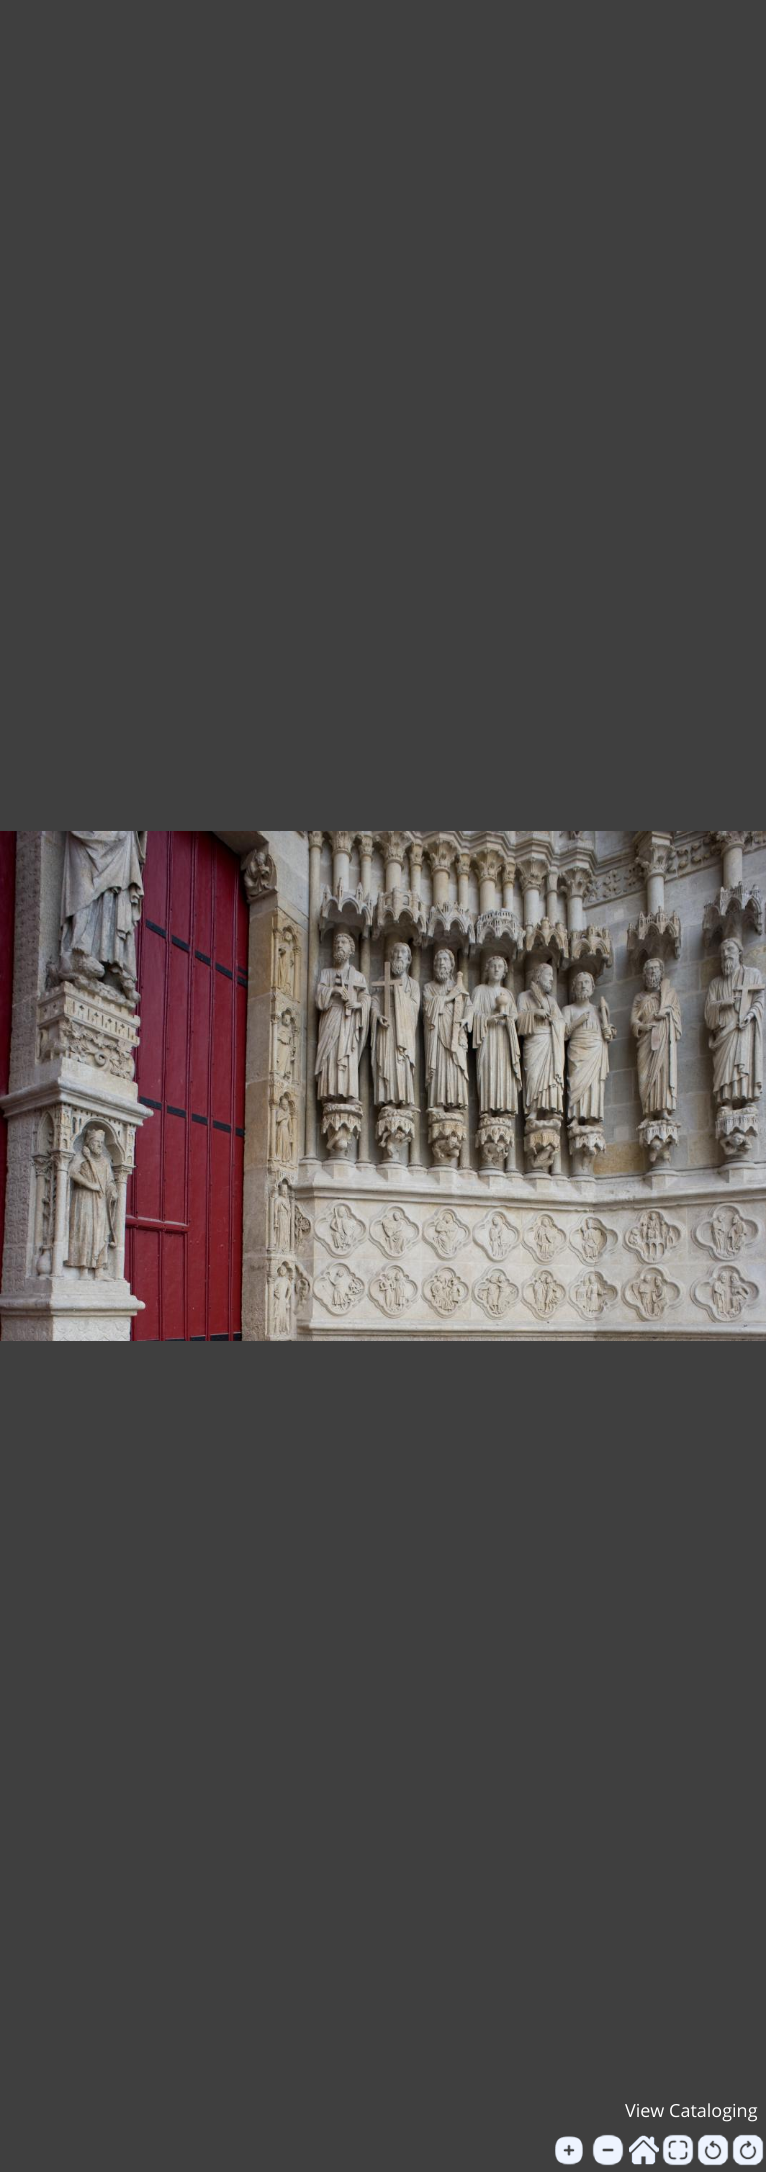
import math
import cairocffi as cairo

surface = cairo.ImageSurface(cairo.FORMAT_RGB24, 766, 2172)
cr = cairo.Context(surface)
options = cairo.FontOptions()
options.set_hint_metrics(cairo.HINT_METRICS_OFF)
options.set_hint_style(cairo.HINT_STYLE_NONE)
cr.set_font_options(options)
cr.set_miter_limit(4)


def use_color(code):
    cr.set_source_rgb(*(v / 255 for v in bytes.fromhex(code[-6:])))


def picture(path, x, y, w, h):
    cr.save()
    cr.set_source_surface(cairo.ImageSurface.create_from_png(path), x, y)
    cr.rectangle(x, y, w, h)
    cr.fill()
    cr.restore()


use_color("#3f3f3f")
cr.paint()
picture("img1.png", 0, 831, 766, 510)
picture("img2.png", 555, 2136, 28, 29)
picture("img3.png", 555, 2136, 28, 29)
picture("img4.png", 592, 2134, 32, 32)
picture("img5.png", 592, 2134, 32, 32)
picture("img6.png", 629, 2135, 30, 30)
picture("img7.png", 629, 2135, 30, 30)
picture("img8.png", 662, 2134, 32, 32)
picture("img9.png", 662, 2134, 32, 32)
picture("img10.png", 697, 2134, 32, 32)
picture("img11.png", 697, 2134, 32, 32)
picture("img12.png", 732, 2134, 32, 32)
picture("img13.png", 732, 2134, 32, 32)
cr.select_font_face("Open Sans")
cr.set_font_size(18)
use_color("#ffffff")
cr.move_to(625, 2117)
cr.show_text("View Cataloging")
surface.write_to_png("result.png")
